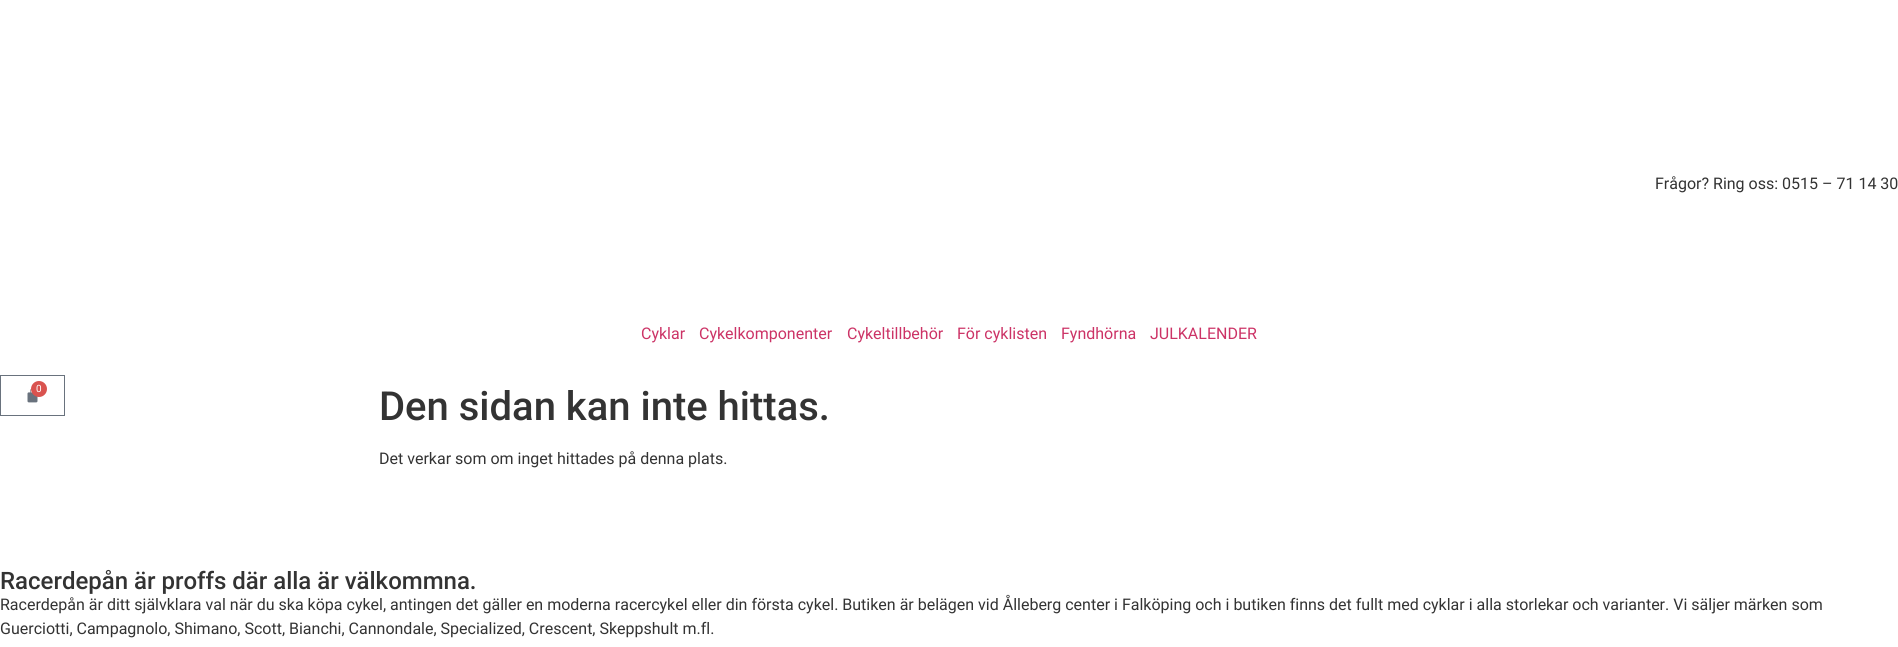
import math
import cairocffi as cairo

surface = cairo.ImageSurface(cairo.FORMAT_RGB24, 1898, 647)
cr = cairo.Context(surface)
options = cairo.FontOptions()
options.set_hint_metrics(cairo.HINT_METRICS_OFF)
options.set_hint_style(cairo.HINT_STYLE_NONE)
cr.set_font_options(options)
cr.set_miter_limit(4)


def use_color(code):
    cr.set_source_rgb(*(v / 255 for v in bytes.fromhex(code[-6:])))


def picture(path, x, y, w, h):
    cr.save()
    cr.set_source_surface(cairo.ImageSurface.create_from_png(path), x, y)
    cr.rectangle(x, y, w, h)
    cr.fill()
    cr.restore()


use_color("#ffffff")
cr.paint()
cr.select_font_face("Roboto")
cr.set_font_size(16)
use_color("#333333")
cr.move_to(1655, 189)
cr.show_text("Frågor? Ring oss: 0515 – 71 14 30")
use_color("#cc3366")
cr.move_to(641, 339)
cr.show_text("Cyklar")
cr.move_to(699, 339)
cr.show_text("Cykelkomponenter")
cr.move_to(847, 339)
cr.show_text("Cykeltillbehör")
cr.move_to(957, 339)
cr.show_text("För cyklisten")
cr.move_to(1061, 339)
cr.show_text("Fyndhörna")
cr.move_to(1150, 339)
cr.show_text("JULKALENDER")
cr.rectangle(0.5, 375.5, 64, 40)
use_color("#69727d")
cr.set_line_width(1)
cr.stroke()
picture("img1.png", 27, 388, 11, 15)
use_color("#d9534f")
cr.arc(39, 389, 8, 0, 2 * math.pi)
cr.fill()
cr.set_font_size(10)
use_color("#ffffff")
cr.move_to(36, 392)
cr.show_text("0")
cr.select_font_face("Roboto Medium")
cr.set_font_size(40)
use_color("#333333")
cr.move_to(379, 420)
cr.show_text("Den sidan kan inte hittas.")
cr.select_font_face("Roboto")
cr.set_font_size(16)
cr.move_to(379, 464)
cr.show_text("Det verkar som om inget hittades på denna plats.")
cr.select_font_face("Roboto Medium")
cr.set_font_size(24)
cr.move_to(0, 589)
cr.show_text("Racerdepån är proffs där alla är välkommna.")
cr.select_font_face("Roboto")
cr.set_font_size(16)
cr.move_to(0, 610)
cr.show_text("Racerdepån är ditt självklara val när du ska köpa cykel, antingen det gäller en moderna racercykel eller din första cykel. Butiken är belägen vid Ålleberg center i Falköping och i butiken finns det fullt med cyklar i alla storlekar och varianter. Vi säljer märken som")
cr.move_to(0, 634)
cr.show_text("Guerciotti, Campagnolo, Shimano, Scott, Bianchi, Cannondale, Specialized, Crescent, Skeppshult m.fl.")
surface.write_to_png("result.png")
